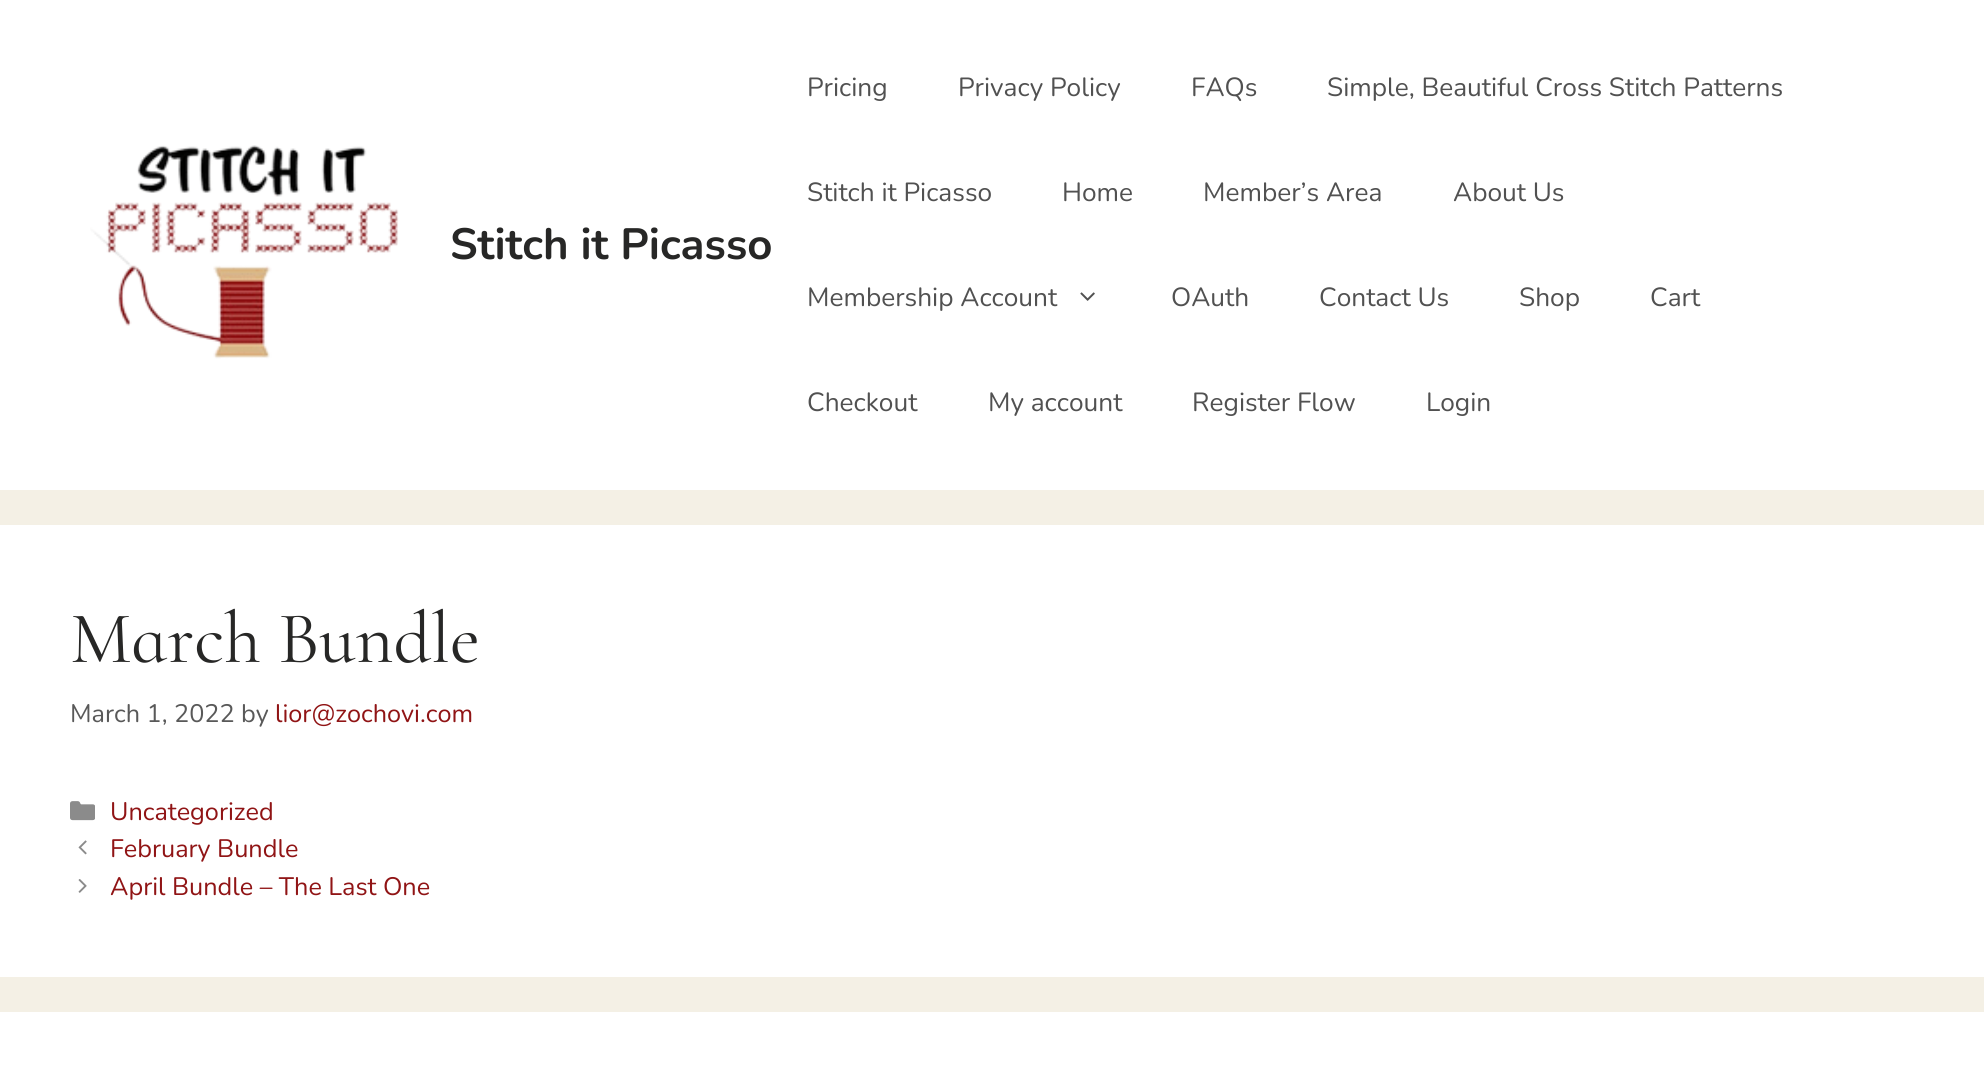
import math
import cairocffi as cairo

surface = cairo.ImageSurface(cairo.FORMAT_RGB24, 1984, 1079)
cr = cairo.Context(surface)
options = cairo.FontOptions()
options.set_hint_metrics(cairo.HINT_METRICS_OFF)
options.set_hint_style(cairo.HINT_STYLE_NONE)
cr.set_font_options(options)
cr.set_miter_limit(4)


def use_color(code):
    cr.set_source_rgb(*(v / 255 for v in bytes.fromhex(code[-6:])))


def picture(path, x, y, w, h):
    cr.save()
    cr.set_source_surface(cairo.ImageSurface.create_from_png(path), x, y)
    cr.rectangle(x, y, w, h)
    cr.fill()
    cr.restore()


use_color("#f4f0e5")
cr.paint()
use_color("#ffffff")
cr.rectangle(0, 0, 1984, 490)
cr.fill()
picture("img1.png", 90, 145, 309, 214)
cr.select_font_face("Nunito", cairo.FONT_SLANT_NORMAL, cairo.FONT_WEIGHT_BOLD)
cr.set_font_size(43.75)
use_color("#272726")
cr.move_to(450, 259)
cr.show_text("Stitch it Picasso")
cr.select_font_face("Nunito")
cr.set_font_size(26.25)
use_color("#515151")
cr.move_to(807, 96)
cr.show_text("Pricing")
cr.move_to(958, 96)
cr.show_text("Privacy Policy")
cr.move_to(1191, 96)
cr.show_text("FAQs")
cr.move_to(1327, 96)
cr.show_text("Simple, Beautiful Cross Stitch Patterns")
cr.move_to(807, 201)
cr.show_text("Stitch it Picasso")
cr.move_to(1062, 201)
cr.show_text("Home")
cr.move_to(1203, 201)
cr.show_text("Member’s Area")
cr.move_to(1453, 201)
cr.show_text("About Us")
cr.move_to(807, 306)
cr.show_text("Membership Account")
picture("img2.png", 1080, 292, 15, 9)
cr.move_to(1171, 306)
cr.show_text("OAuth")
cr.move_to(1319, 306)
cr.show_text("Contact Us")
cr.move_to(1519, 306)
cr.show_text("Shop")
cr.move_to(1650, 306)
cr.show_text("Cart")
cr.move_to(807, 411)
cr.show_text("Checkout")
cr.move_to(988, 411)
cr.show_text("My account")
cr.move_to(1192, 411)
cr.show_text("Register Flow")
cr.move_to(1426, 411)
cr.show_text("Login")
use_color("#ffffff")
cr.rectangle(0, 525, 1984, 452)
cr.fill()
cr.select_font_face("Cormorant Infant")
cr.set_font_size(73.5)
use_color("#272726")
cr.move_to(70, 662)
cr.show_text("March Bundle")
cr.select_font_face("Nunito")
cr.set_font_size(25.25)
use_color("#595959")
cr.move_to(70, 722)
cr.show_text("March 1, 2022 by")
use_color("#901415")
cr.move_to(275, 722)
cr.show_text("lior@zochovi.com")
picture("img3.png", 70, 801, 25, 20)
cr.move_to(110, 820)
cr.show_text("Uncategorized")
picture("img4.png", 78, 840, 9, 15)
cr.move_to(110, 857)
cr.show_text("February Bundle")
picture("img5.png", 78, 879, 9, 14)
cr.move_to(110, 895)
cr.show_text("April Bundle – The Last One")
use_color("#ffffff")
cr.rectangle(0, 1012, 1984, 67)
cr.fill()
surface.write_to_png("result.png")
